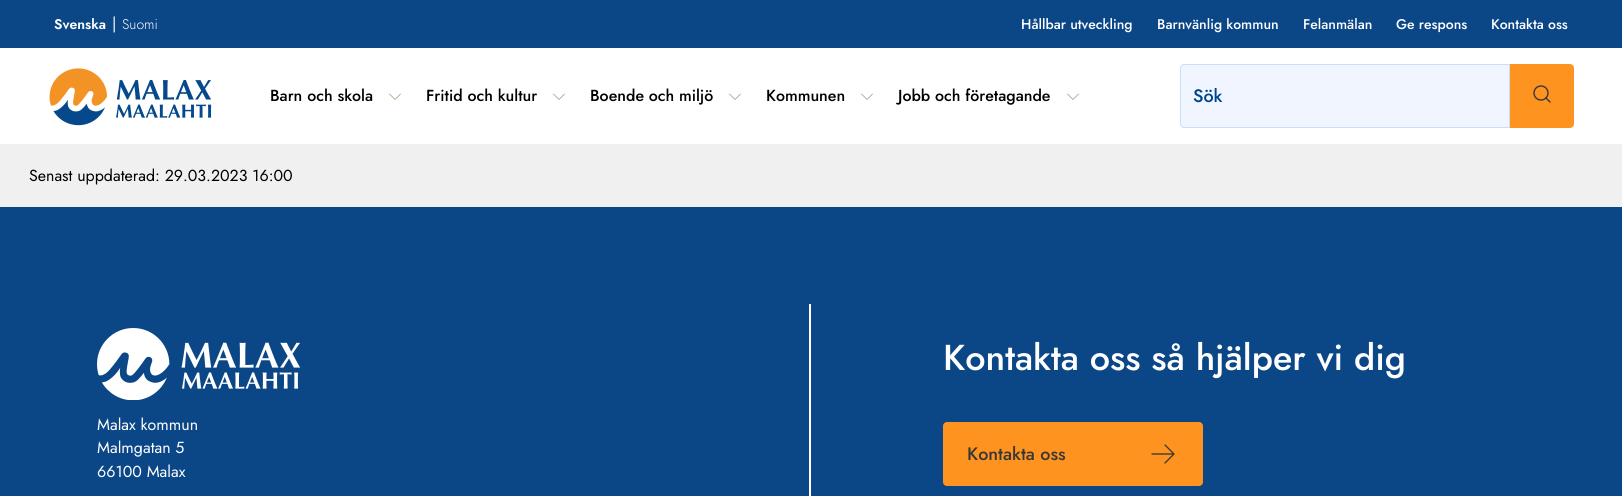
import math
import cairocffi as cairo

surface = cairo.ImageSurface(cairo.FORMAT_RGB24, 1622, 496)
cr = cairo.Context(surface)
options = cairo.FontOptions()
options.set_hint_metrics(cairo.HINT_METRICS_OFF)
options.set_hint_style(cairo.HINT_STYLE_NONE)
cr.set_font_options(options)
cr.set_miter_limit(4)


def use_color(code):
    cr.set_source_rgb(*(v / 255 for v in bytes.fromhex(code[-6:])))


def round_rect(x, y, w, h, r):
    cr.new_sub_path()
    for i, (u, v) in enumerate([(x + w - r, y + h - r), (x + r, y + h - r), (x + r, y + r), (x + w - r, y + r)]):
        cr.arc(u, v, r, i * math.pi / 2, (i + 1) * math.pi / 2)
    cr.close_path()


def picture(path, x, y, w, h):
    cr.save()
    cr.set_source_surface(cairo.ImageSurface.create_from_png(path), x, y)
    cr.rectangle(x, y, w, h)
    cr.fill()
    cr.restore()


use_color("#ffffff")
cr.paint()
use_color("#0b4787")
cr.rectangle(0, 0, 1622, 48)
cr.fill()
cr.select_font_face("Jost SemiBold")
cr.set_font_size(14)
use_color("#ffffff")
cr.move_to(54, 29)
cr.show_text("Svenska")
cr.select_font_face("Jost")
cr.set_font_size(16)
cr.move_to(112, 29)
cr.show_text("|")
cr.select_font_face("Jost Light")
cr.set_font_size(14)
cr.move_to(122, 29)
cr.show_text("Suomi")
cr.select_font_face("Jost Medium")
cr.move_to(1021, 29)
cr.show_text("Hållbar utveckling")
cr.move_to(1157, 29)
cr.show_text("Barnvänlig kommun")
cr.move_to(1303, 29)
cr.show_text("Felanmälan")
cr.move_to(1396, 29)
cr.show_text("Ge respons")
cr.move_to(1491, 29)
cr.show_text("Kontakta oss")
picture("img1.png", 49, 68, 163, 58)
cr.set_font_size(16)
use_color("#000000")
cr.move_to(270, 101)
cr.show_text("Barn och skola")
cr.new_path()
cr.move_to(400.5, 94)
cr.line_to(395, 99.5)
cr.line_to(389.5, 94)
use_color("#85805a")
cr.set_line_width(0.6)
cr.set_line_cap(cairo.LINE_CAP_ROUND)
cr.set_line_join(cairo.LINE_JOIN_ROUND)
cr.stroke()
use_color("#000000")
cr.move_to(426, 101)
cr.show_text("Fritid och kultur")
cr.new_path()
cr.move_to(564.5, 94)
cr.line_to(559, 99.5)
cr.line_to(553.5, 94)
use_color("#85805a")
cr.stroke()
use_color("#000000")
cr.move_to(590, 101)
cr.show_text("Boende och miljö")
cr.new_path()
cr.move_to(740.5, 94)
cr.line_to(735, 99.5)
cr.line_to(729.5, 94)
use_color("#85805a")
cr.stroke()
use_color("#000000")
cr.move_to(766, 101)
cr.show_text("Kommunen")
cr.new_path()
cr.move_to(872.5, 94)
cr.line_to(867, 99.5)
cr.line_to(861.5, 94)
use_color("#85805a")
cr.stroke()
use_color("#000000")
cr.move_to(898, 101)
cr.show_text("Jobb och företagande")
cr.new_path()
cr.move_to(1078.5, 94)
cr.line_to(1073, 99.5)
cr.line_to(1067.5, 94)
use_color("#85805a")
cr.stroke()
use_color("#f0f5ff")
cr.new_path()
cr.move_to(1184, 64.5)
cr.line_to(1509.5, 64.5)
cr.line_to(1509.5, 127.5)
cr.line_to(1184, 127.5)
cr.curve_to(1182, 127.5, 1180.5, 126, 1180.5, 124)
cr.line_to(1180.5, 68)
cr.curve_to(1180.5, 66, 1182, 64.5, 1184, 64.5)
cr.close_path()
cr.fill_preserve()
use_color("#cbddff")
cr.set_line_width(1)
cr.set_line_cap(cairo.LINE_CAP_BUTT)
cr.set_line_join(cairo.LINE_JOIN_MITER)
cr.stroke()
cr.set_font_size(18)
use_color("#00468b")
cr.move_to(1193, 102)
cr.show_text("Sök")
use_color("#ff9320")
cr.new_path()
cr.move_to(1510, 64)
cr.line_to(1570, 64)
cr.curve_to(1572, 64, 1574, 66, 1574, 68)
cr.line_to(1574, 124)
cr.curve_to(1574, 126, 1572, 128, 1570, 128)
cr.line_to(1510, 128)
cr.close_path()
cr.fill()
cr.arc(1541, 93, 7, 0, 2 * math.pi)
use_color("#373737")
cr.set_line_width(1.4)
cr.stroke()
cr.new_path()
cr.move_to(1546, 98)
cr.line_to(1550, 102)
cr.set_line_cap(cairo.LINE_CAP_ROUND)
cr.set_line_join(cairo.LINE_JOIN_ROUND)
cr.stroke()
use_color("#f0f0f0")
cr.rectangle(0, 144, 1622, 63)
cr.fill()
cr.select_font_face("Jost")
cr.set_font_size(16)
use_color("#000000")
cr.move_to(29, 181)
cr.show_text("Senast uppdaterad: 29.03.2023 16:00")
use_color("#0b4787")
cr.rectangle(0, 207, 1622, 289)
cr.fill()
use_color("#ffffff")
cr.rectangle(809, 304, 2, 192)
cr.fill()
picture("img2.png", 97, 328, 203, 72)
cr.move_to(97, 430)
cr.show_text("Malax kommun")
cr.move_to(97, 453)
cr.show_text("Malmgatan 5")
cr.move_to(97, 477)
cr.show_text("66100 Malax")
cr.select_font_face("Jost Medium")
cr.set_font_size(36)
cr.move_to(943, 370)
cr.show_text("Kontakta oss så hjälper vi dig")
use_color("#ff9320")
round_rect(943, 422, 260, 64, 4)
cr.fill()
cr.set_font_size(18)
use_color("#373737")
cr.move_to(967, 460)
cr.show_text("Kontakta oss")
cr.new_path()
cr.move_to(1152, 454)
cr.line_to(1174, 454)
cr.move_to(1165, 445)
cr.line_to(1174, 454)
cr.line_to(1165, 463)
cr.set_line_width(1.3)
cr.stroke()
surface.write_to_png("result.png")
